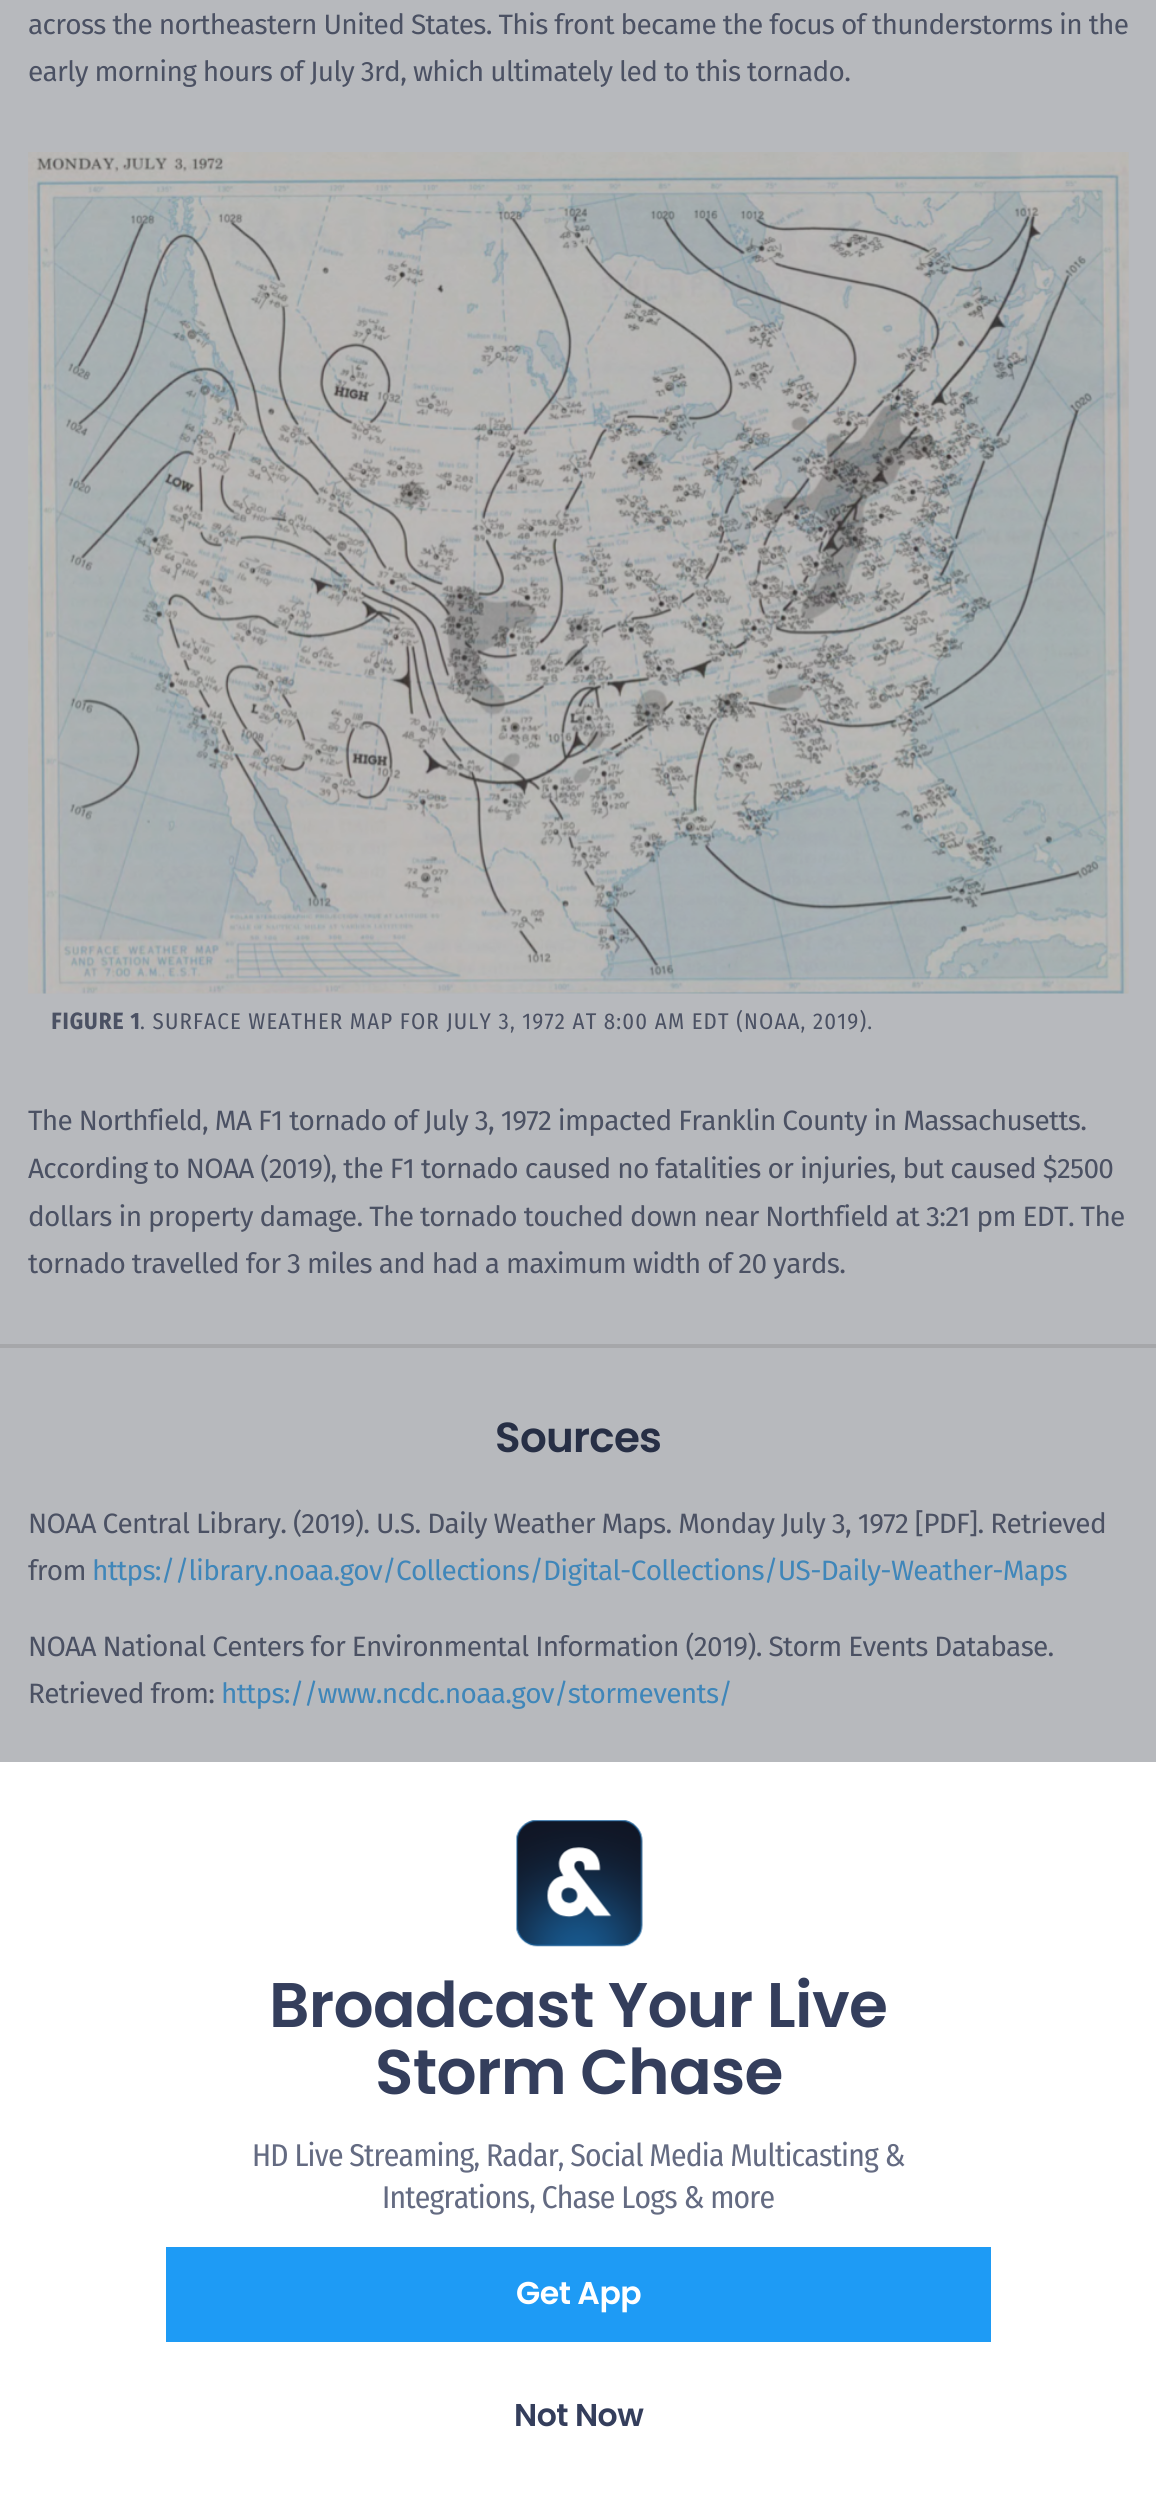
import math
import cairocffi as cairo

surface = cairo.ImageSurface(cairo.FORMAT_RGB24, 1156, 2520)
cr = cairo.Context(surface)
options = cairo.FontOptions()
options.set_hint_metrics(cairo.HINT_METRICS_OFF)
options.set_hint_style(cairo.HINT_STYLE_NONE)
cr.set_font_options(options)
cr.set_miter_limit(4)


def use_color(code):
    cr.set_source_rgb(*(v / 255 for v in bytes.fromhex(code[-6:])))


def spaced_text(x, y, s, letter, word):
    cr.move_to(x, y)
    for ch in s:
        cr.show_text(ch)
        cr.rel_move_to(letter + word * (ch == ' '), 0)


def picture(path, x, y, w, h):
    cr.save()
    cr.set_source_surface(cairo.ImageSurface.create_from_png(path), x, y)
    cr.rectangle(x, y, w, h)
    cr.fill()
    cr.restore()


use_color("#b7b9bd")
cr.paint()
cr.select_font_face("Fira Sans")
cr.set_font_size(28)
use_color("#4b5163")
spaced_text(28, 34, "across the northeastern United States. This front became the focus of thunderstorms in the", -0.7, 0)
spaced_text(28, 81, "early morning hours of July 3rd, which ultimately led to this tornado.", -0.7, 0)
picture("img1.png", 28, 152, 1101, 842)
cr.select_font_face("Fira Sans Condensed", cairo.FONT_SLANT_NORMAL, cairo.FONT_WEIGHT_BOLD)
cr.set_font_size(22.75)
spaced_text(51, 1029, "FIGURE 1", 1.15, 0)
cr.select_font_face("Fira Sans Condensed")
spaced_text(140, 1029, ". SURFACE WEATHER MAP FOR JULY 3, 1972 AT 8:00 AM EDT (NOAA, 2019).", 1.15, 0)
cr.select_font_face("Fira Sans")
cr.set_font_size(28)
spaced_text(28, 1130, "The Northfield, MA F1 tornado of July 3, 1972 impacted Franklin County in Massachusetts.", -0.7, 0)
spaced_text(28, 1178, "According to NOAA (2019), the F1 tornado caused no fatalities or injuries, but caused $2500", -0.7, 0)
spaced_text(28, 1226, "dollars in property damage. The tornado touched down near Northfield at 3:21 pm EDT. The", -0.7, 0)
spaced_text(28, 1273, "tornado travelled for 3 miles and had a maximum width of 20 yards.", -0.7, 0)
use_color("#a6a7aa")
cr.rectangle(0, 1344, 1156, 4)
cr.fill()
cr.select_font_face("Poppins SemiBold")
cr.set_font_size(42)
use_color("#272f45")
spaced_text(495, 1452, "Sources", -0.7, 0)
cr.select_font_face("Fira Sans")
cr.set_font_size(28)
use_color("#4b5163")
spaced_text(28, 1533, "NOAA Central Library. (2019). U.S. Daily Weather Maps. Monday July 3, 1972 [PDF]. Retrieved", -0.7, 0)
spaced_text(28, 1580, "from", -0.7, 0)
use_color("#3f86b9")
spaced_text(92, 1580, "https://library.noaa.gov/Collections/Digital-Collections/US-Daily-Weather-Maps", -0.7, 0)
use_color("#4b5163")
spaced_text(28, 1656, "NOAA National Centers for Environmental Information (2019). Storm Events Database.", -0.7, 0)
spaced_text(28, 1703, "Retrieved from:", -0.7, 0)
use_color("#3f86b9")
spaced_text(221, 1703, "https://www.ncdc.noaa.gov/stormevents/", -0.7, 0)
use_color("#ffffff")
cr.rectangle(0, 1762, 1156, 758)
cr.fill()
picture("img2.png", 516, 1820, 127, 127)
cr.select_font_face("Poppins SemiBold")
cr.set_font_size(63)
use_color("#343e5c")
spaced_text(269, 2027, "Broadcast Your Live", -0.7, 0)
spaced_text(375, 2094, "Storm Chase", -0.7, 0)
cr.select_font_face("Fira Sans Condensed")
cr.set_font_size(31.5)
use_color("#646b82")
spaced_text(252, 2166, "HD Live Streaming, Radar, Social Media Multicasting &", -0.8, 0)
spaced_text(382, 2208, "Integrations, Chase Logs & more", -0.8, 0)
use_color("#1e9bf5")
cr.rectangle(166, 2247, 825, 95)
cr.fill()
cr.select_font_face("Poppins SemiBold")
use_color("#ffffff")
spaced_text(516, 2304, "Get App", -0.5, 0)
use_color("#343e5c")
spaced_text(514, 2426, "Not Now", -0.5, 0)
surface.write_to_png("result.png")
